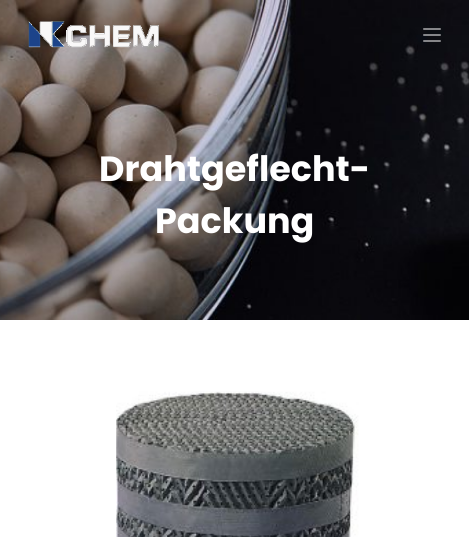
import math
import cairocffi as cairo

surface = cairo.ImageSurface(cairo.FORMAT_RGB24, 469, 537)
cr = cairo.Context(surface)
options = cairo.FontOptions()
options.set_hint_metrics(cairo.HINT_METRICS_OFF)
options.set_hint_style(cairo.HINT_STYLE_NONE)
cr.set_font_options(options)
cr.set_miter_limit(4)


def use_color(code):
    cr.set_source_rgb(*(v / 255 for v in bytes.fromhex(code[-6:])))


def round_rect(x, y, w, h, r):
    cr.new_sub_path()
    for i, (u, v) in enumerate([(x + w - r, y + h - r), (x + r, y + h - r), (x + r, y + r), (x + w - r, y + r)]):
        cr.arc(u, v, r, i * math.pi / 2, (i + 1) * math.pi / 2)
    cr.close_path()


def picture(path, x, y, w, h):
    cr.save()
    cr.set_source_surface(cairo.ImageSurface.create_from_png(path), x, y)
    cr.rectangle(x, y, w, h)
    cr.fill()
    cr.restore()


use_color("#ffffff")
cr.paint()
picture("img2.png", 0, 0, 469, 320)
picture("img1.png", 28, 21, 131, 27)
use_color("#868689")
round_rect(423, 28, 18, 2, 1)
cr.fill()
cr.set_source_rgba(1, 1, 1, 0.5)
round_rect(423, 34, 18, 2, 1)
cr.fill()
round_rect(423, 40, 18, 2, 1)
cr.fill()
cr.select_font_face("Poppins", cairo.FONT_SLANT_NORMAL, cairo.FONT_WEIGHT_BOLD)
cr.set_font_size(35)
use_color("#ffffff")
cr.move_to(99, 181)
cr.show_text("Drahtgeflecht-")
cr.move_to(155, 233)
cr.show_text("Packung")
picture("img3.png", 116, 391, 243, 146)
surface.write_to_png("result.png")
